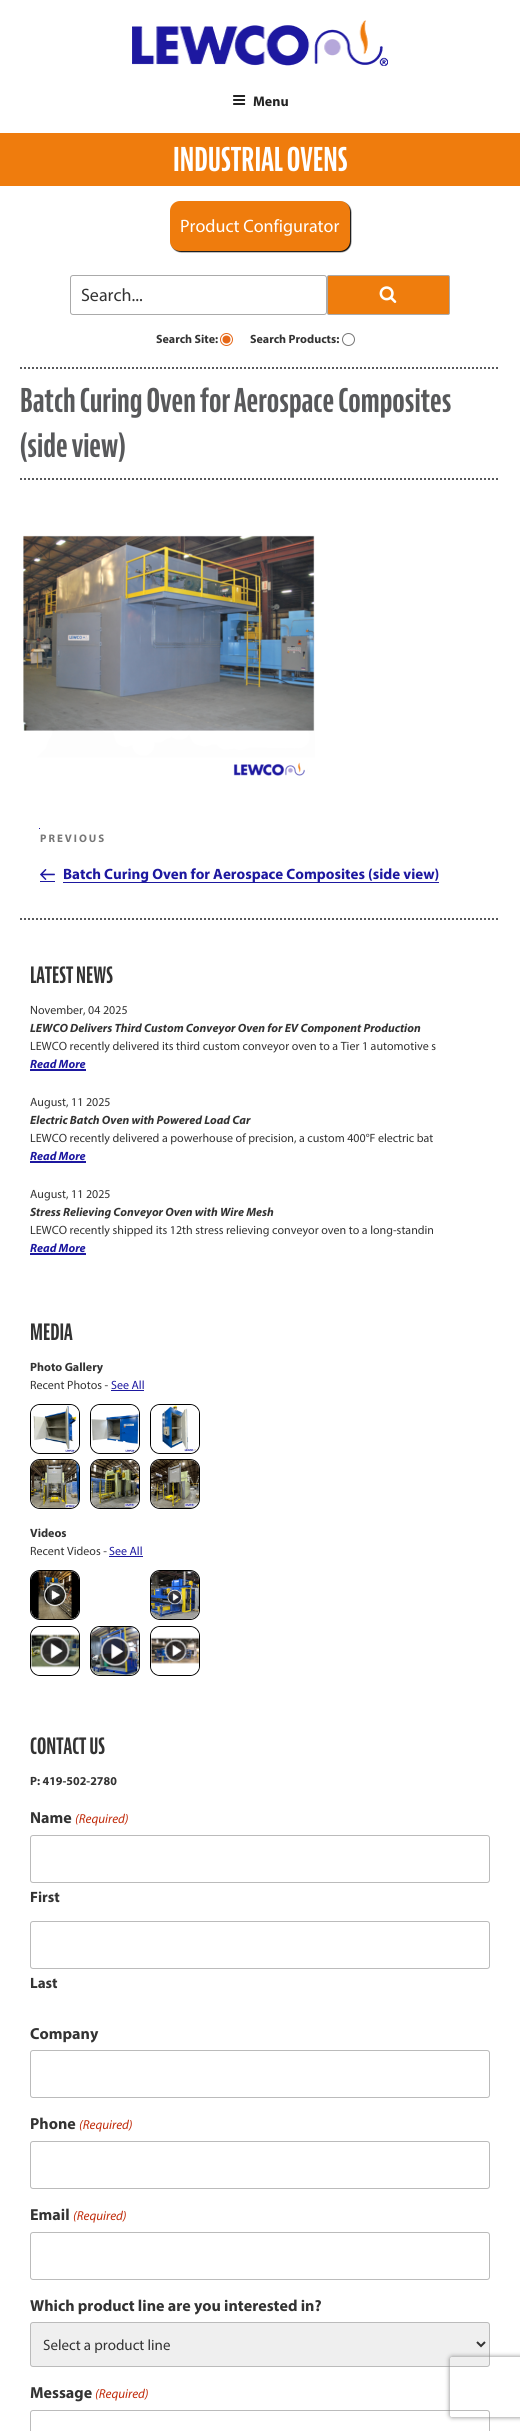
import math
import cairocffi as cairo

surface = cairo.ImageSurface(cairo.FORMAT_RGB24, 520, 2431)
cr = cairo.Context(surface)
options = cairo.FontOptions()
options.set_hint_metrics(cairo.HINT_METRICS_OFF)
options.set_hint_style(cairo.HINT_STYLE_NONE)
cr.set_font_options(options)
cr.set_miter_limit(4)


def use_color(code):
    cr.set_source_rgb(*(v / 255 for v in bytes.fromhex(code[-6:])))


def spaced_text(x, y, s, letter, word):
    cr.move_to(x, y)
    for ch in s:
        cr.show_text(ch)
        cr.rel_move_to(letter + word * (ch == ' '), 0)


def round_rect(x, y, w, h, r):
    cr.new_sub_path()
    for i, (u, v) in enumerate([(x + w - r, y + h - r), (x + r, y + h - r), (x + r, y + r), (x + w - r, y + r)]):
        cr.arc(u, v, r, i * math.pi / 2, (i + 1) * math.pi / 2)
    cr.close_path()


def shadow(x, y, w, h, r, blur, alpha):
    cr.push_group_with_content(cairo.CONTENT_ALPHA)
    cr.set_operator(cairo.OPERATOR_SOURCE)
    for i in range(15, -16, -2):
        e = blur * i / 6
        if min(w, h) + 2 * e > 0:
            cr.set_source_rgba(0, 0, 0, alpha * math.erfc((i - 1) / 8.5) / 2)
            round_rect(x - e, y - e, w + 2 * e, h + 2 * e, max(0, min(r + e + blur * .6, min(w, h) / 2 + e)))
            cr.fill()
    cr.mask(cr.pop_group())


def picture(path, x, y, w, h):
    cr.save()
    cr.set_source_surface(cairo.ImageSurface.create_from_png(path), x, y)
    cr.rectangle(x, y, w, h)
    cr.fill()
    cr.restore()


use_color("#ffffff")
cr.paint()
picture("img1.png", 132, 20, 256, 46)
picture("img2.png", 233, 95, 13, 10)
cr.select_font_face("Myriad", cairo.FONT_SLANT_NORMAL, cairo.FONT_WEIGHT_BOLD)
cr.set_font_size(14)
use_color("#222222")
cr.move_to(253, 106)
cr.show_text("Menu")
use_color("#ef7c0d")
cr.rectangle(0, 133, 520, 53)
cr.fill()
cr.select_font_face("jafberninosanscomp", cairo.FONT_SLANT_NORMAL, cairo.FONT_WEIGHT_BOLD)
cr.set_font_size(32)
use_color("#ffffff")
cr.move_to(173, 171)
cr.show_text("INDUSTRIAL OVENS")
cr.new_path()
cr.move_to(20, 368)
cr.line_to(500, 368)
use_color("#58595b")
cr.set_dash([2, 2])
cr.stroke()
use_color("#000000")
shadow(171, 202, 180, 50, 10, 0.5, 1)
use_color("#ef7c0d")
round_rect(170, 201, 180, 50, 10)
cr.fill()
cr.select_font_face("Myriad")
cr.set_font_size(18)
use_color("#ffffff")
cr.move_to(180, 232)
cr.show_text("Product Configurator")
round_rect(70.5, 275.5, 256, 39, 2.5)
use_color("#aaaaaa")
cr.set_line_width(1)
cr.set_dash([])
cr.stroke()
use_color("#333333")
cr.move_to(81, 301)
cr.show_text("Search...")
use_color("#ef7d0d")
round_rect(327.5, 275.5, 122, 39, 1.5)
cr.fill_preserve()
use_color("#aaaaaa")
cr.stroke()
picture("img3.png", 379, 286, 18, 17)
cr.select_font_face("Myriad", cairo.FONT_SLANT_NORMAL, cairo.FONT_WEIGHT_BOLD)
cr.set_font_size(12)
use_color("#333333")
cr.move_to(156, 343)
cr.show_text("Search Site:")
cr.new_path()
cr.arc(226.5, 339.5, 6, 0, 2 * math.pi)
use_color("#e66717")
cr.stroke()
cr.arc(226.5, 339.5, 4, 0, 2 * math.pi)
cr.fill()
use_color("#333333")
cr.move_to(250, 343)
cr.show_text("Search Products:")
cr.new_path()
cr.arc(348.5, 339.5, 6, 0, 2 * math.pi)
use_color("#767676")
cr.stroke()
cr.new_path()
cr.move_to(20, 479)
cr.line_to(500, 479)
use_color("#58595b")
cr.set_line_width(2)
cr.set_dash([2, 2])
cr.stroke()
cr.select_font_face("jafberninosanscomp", cairo.FONT_SLANT_NORMAL, cairo.FONT_WEIGHT_BOLD)
cr.set_font_size(32)
cr.move_to(20, 412)
cr.show_text("Batch Curing Oven for Aerospace Composites")
cr.move_to(20, 457)
cr.show_text("(side view)")
picture("img4.png", 23, 535, 292, 241)
use_color("#1d18a0")
cr.rectangle(39, 828, 1, 1)
cr.fill()
cr.rectangle(40, 881, 15, 1)
cr.fill()
cr.rectangle(63, 882, 376, 1)
cr.fill()
cr.select_font_face("Myriad", cairo.FONT_SLANT_NORMAL, cairo.FONT_WEIGHT_BOLD)
cr.set_font_size(11)
use_color("#767676")
spaced_text(40, 842, "PREVIOUS", 2, 0)
picture("img5.png", 40, 869, 15, 11)
cr.set_font_size(15)
use_color("#1d18a0")
cr.move_to(63, 879)
cr.show_text("Batch Curing Oven for Aerospace Composites (side view)")
cr.new_path()
cr.move_to(20, 919)
cr.line_to(500, 919)
use_color("#58595b")
cr.stroke()
cr.select_font_face("jafberninosanscomp", cairo.FONT_SLANT_NORMAL, cairo.FONT_WEIGHT_BOLD)
cr.set_font_size(22)
use_color("#333333")
cr.move_to(30, 983)
cr.show_text("LATEST NEWS")
cr.select_font_face("Myriad")
cr.set_font_size(12)
cr.move_to(30, 1014)
cr.show_text("November, 04 2025")
cr.select_font_face("Myriad", cairo.FONT_SLANT_ITALIC, cairo.FONT_WEIGHT_BOLD)
cr.move_to(30, 1032)
cr.show_text("LEWCO Delivers Third Custom Conveyor Oven for EV Component Production")
cr.select_font_face("Myriad")
cr.move_to(30, 1050)
cr.show_text("LEWCO recently delivered its third custom conveyor oven to a Tier 1 automotive s")
cr.select_font_face("Myriad", cairo.FONT_SLANT_ITALIC, cairo.FONT_WEIGHT_BOLD)
use_color("#1d18a0")
cr.move_to(30, 1068)
cr.show_text("Read More")
cr.rectangle(30, 1069, 56, 2)
cr.fill()
cr.select_font_face("Myriad")
use_color("#333333")
cr.move_to(30, 1106)
cr.show_text("August, 11 2025")
cr.select_font_face("Myriad", cairo.FONT_SLANT_ITALIC, cairo.FONT_WEIGHT_BOLD)
cr.move_to(30, 1124)
cr.show_text("Electric Batch Oven with Powered Load Car")
cr.select_font_face("Myriad")
cr.move_to(30, 1142)
cr.show_text("LEWCO recently delivered a powerhouse of precision, a custom 400°F electric bat")
cr.select_font_face("Myriad", cairo.FONT_SLANT_ITALIC, cairo.FONT_WEIGHT_BOLD)
use_color("#1d18a0")
cr.move_to(30, 1160)
cr.show_text("Read More")
cr.rectangle(30, 1161, 56, 2)
cr.fill()
cr.select_font_face("Myriad")
use_color("#333333")
cr.move_to(30, 1198)
cr.show_text("August, 11 2025")
cr.select_font_face("Myriad", cairo.FONT_SLANT_ITALIC, cairo.FONT_WEIGHT_BOLD)
cr.move_to(30, 1216)
cr.show_text("Stress Relieving Conveyor Oven with Wire Mesh")
cr.select_font_face("Myriad")
cr.move_to(30, 1234)
cr.show_text("LEWCO recently shipped its 12th stress relieving conveyor oven to a long-standin")
cr.select_font_face("Myriad", cairo.FONT_SLANT_ITALIC, cairo.FONT_WEIGHT_BOLD)
use_color("#1d18a0")
cr.move_to(30, 1252)
cr.show_text("Read More")
cr.rectangle(30, 1253, 56, 2)
cr.fill()
cr.select_font_face("jafberninosanscomp", cairo.FONT_SLANT_NORMAL, cairo.FONT_WEIGHT_BOLD)
cr.set_font_size(22)
use_color("#333333")
cr.move_to(30, 1340)
cr.show_text("MEDIA")
cr.select_font_face("Myriad", cairo.FONT_SLANT_NORMAL, cairo.FONT_WEIGHT_BOLD)
cr.set_font_size(12)
cr.move_to(30, 1371)
cr.show_text("Photo Gallery")
cr.select_font_face("Myriad")
cr.move_to(30, 1389)
cr.show_text("Recent Photos -")
use_color("#1d18a0")
cr.move_to(111, 1389)
cr.show_text("See All")
cr.rectangle(111, 1390, 33, 1)
cr.fill()
round_rect(30.5, 1404.5, 49, 49, 9.5)
use_color("#000000")
cr.set_line_width(1)
cr.set_dash([])
cr.stroke()
picture("img6.png", 31, 1405, 48, 48)
round_rect(90.5, 1404.5, 49, 49, 9.5)
cr.stroke()
picture("img7.png", 91, 1405, 48, 48)
round_rect(150.5, 1404.5, 49, 49, 9.5)
cr.stroke()
picture("img8.png", 151, 1405, 48, 48)
round_rect(30.5, 1459.5, 49, 49, 9.5)
cr.stroke()
picture("img9.png", 31, 1460, 48, 48)
round_rect(90.5, 1459.5, 49, 49, 9.5)
cr.stroke()
picture("img10.png", 91, 1460, 48, 48)
round_rect(150.5, 1459.5, 49, 49, 9.5)
cr.stroke()
picture("img11.png", 151, 1460, 48, 48)
cr.select_font_face("Myriad", cairo.FONT_SLANT_NORMAL, cairo.FONT_WEIGHT_BOLD)
use_color("#333333")
cr.move_to(30, 1537)
cr.show_text("Videos")
cr.select_font_face("Myriad")
cr.move_to(30, 1555)
cr.show_text("Recent Videos -")
use_color("#1d18a0")
cr.move_to(109, 1555)
cr.show_text("See All")
cr.rectangle(109, 1556, 34, 1)
cr.fill()
round_rect(30.5, 1570.5, 49, 49, 9.5)
use_color("#000000")
cr.stroke()
picture("img12.png", 31, 1571, 48, 48)
round_rect(150.5, 1570.5, 49, 49, 9.5)
cr.stroke()
picture("img13.png", 151, 1571, 48, 48)
round_rect(30.5, 1626.5, 49, 49, 9.5)
cr.stroke()
picture("img14.png", 31, 1627, 48, 48)
round_rect(90.5, 1626.5, 49, 49, 9.5)
cr.stroke()
picture("img15.png", 91, 1627, 48, 48)
round_rect(150.5, 1626.5, 49, 49, 9.5)
cr.stroke()
picture("img16.png", 151, 1627, 48, 48)
cr.select_font_face("jafberninosanscomp", cairo.FONT_SLANT_NORMAL, cairo.FONT_WEIGHT_BOLD)
cr.set_font_size(22)
use_color("#333333")
cr.move_to(30, 1754)
cr.show_text("CONTACT US")
cr.select_font_face("Myriad", cairo.FONT_SLANT_NORMAL, cairo.FONT_WEIGHT_BOLD)
cr.set_font_size(12)
cr.move_to(30, 1785)
cr.show_text("P: 419-502-2780")
cr.set_font_size(16)
cr.move_to(30, 1823)
cr.show_text("Name")
cr.select_font_face("Myriad", cairo.FONT_SLANT_ITALIC)
cr.set_font_size(13)
use_color("#c02b0a")
cr.move_to(75, 1823)
cr.show_text("(Required)")
round_rect(30.5, 1835.5, 459, 47, 2.5)
use_color("#bbbbbb")
cr.stroke()
cr.select_font_face("Myriad", cairo.FONT_SLANT_NORMAL, cairo.FONT_WEIGHT_BOLD)
cr.set_font_size(15)
use_color("#333333")
cr.move_to(30, 1902)
cr.show_text("First")
round_rect(30.5, 1921.5, 459, 47, 2.5)
use_color("#bbbbbb")
cr.stroke()
use_color("#333333")
cr.move_to(30, 1988)
cr.show_text("Last")
cr.set_font_size(16)
cr.move_to(30, 2039)
cr.show_text("Company")
round_rect(30.5, 2050.5, 459, 47, 2.5)
use_color("#bbbbbb")
cr.stroke()
use_color("#333333")
cr.move_to(30, 2129)
cr.show_text("Phone")
cr.select_font_face("Myriad", cairo.FONT_SLANT_ITALIC)
cr.set_font_size(13)
use_color("#c02b0a")
cr.move_to(79, 2129)
cr.show_text("(Required)")
round_rect(30.5, 2141.5, 459, 47, 2.5)
use_color("#bbbbbb")
cr.stroke()
cr.select_font_face("Myriad", cairo.FONT_SLANT_NORMAL, cairo.FONT_WEIGHT_BOLD)
cr.set_font_size(16)
use_color("#333333")
cr.move_to(30, 2220)
cr.show_text("Email")
cr.select_font_face("Myriad", cairo.FONT_SLANT_ITALIC)
cr.set_font_size(13)
use_color("#c02b0a")
cr.move_to(73, 2220)
cr.show_text("(Required)")
round_rect(30.5, 2232.5, 459, 47, 2.5)
use_color("#bbbbbb")
cr.stroke()
cr.select_font_face("Myriad", cairo.FONT_SLANT_NORMAL, cairo.FONT_WEIGHT_BOLD)
cr.set_font_size(16)
use_color("#333333")
cr.move_to(30, 2311)
cr.show_text("Which product line are you interested in?")
use_color("#efefef")
round_rect(30.5, 2322.5, 459, 44, 2.5)
cr.fill_preserve()
use_color("#bbbbbb")
cr.stroke()
cr.new_path()
cr.move_to(477, 2342)
cr.line_to(481, 2346)
cr.line_to(485, 2342)
use_color("#333333")
cr.set_line_width(2)
cr.stroke()
cr.select_font_face("Myriad")
cr.set_font_size(15)
cr.move_to(43, 2350)
cr.show_text("Select a product line")
cr.select_font_face("Myriad", cairo.FONT_SLANT_NORMAL, cairo.FONT_WEIGHT_BOLD)
cr.set_font_size(16)
cr.move_to(30, 2398)
cr.show_text("Message")
cr.select_font_face("Myriad", cairo.FONT_SLANT_ITALIC)
cr.set_font_size(13)
use_color("#c02b0a")
cr.move_to(95, 2398)
cr.show_text("(Required)")
round_rect(30.5, 2410.5, 459, 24, 2.5)
use_color("#bbbbbb")
cr.set_line_width(1)
cr.stroke()
cr.save()
cr.set_fill_rule(cairo.FILL_RULE_EVEN_ODD)
cr.new_path()
cr.move_to(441, 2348)
cr.line_to(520, 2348)
cr.line_to(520, 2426)
cr.line_to(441, 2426)
cr.close_path()
cr.move_to(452, 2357)
cr.line_to(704, 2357)
cr.curve_to(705, 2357, 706, 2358, 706, 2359)
cr.line_to(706, 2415)
cr.curve_to(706, 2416, 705, 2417, 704, 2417)
cr.line_to(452, 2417)
cr.curve_to(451, 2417, 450, 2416, 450, 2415)
cr.line_to(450, 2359)
cr.curve_to(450, 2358, 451, 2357, 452, 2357)
cr.close_path()
cr.clip()
use_color("#808080")
shadow(450, 2357, 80, 60, 2, 2.5, 1)
cr.restore()
surface.write_to_png("result.png")
